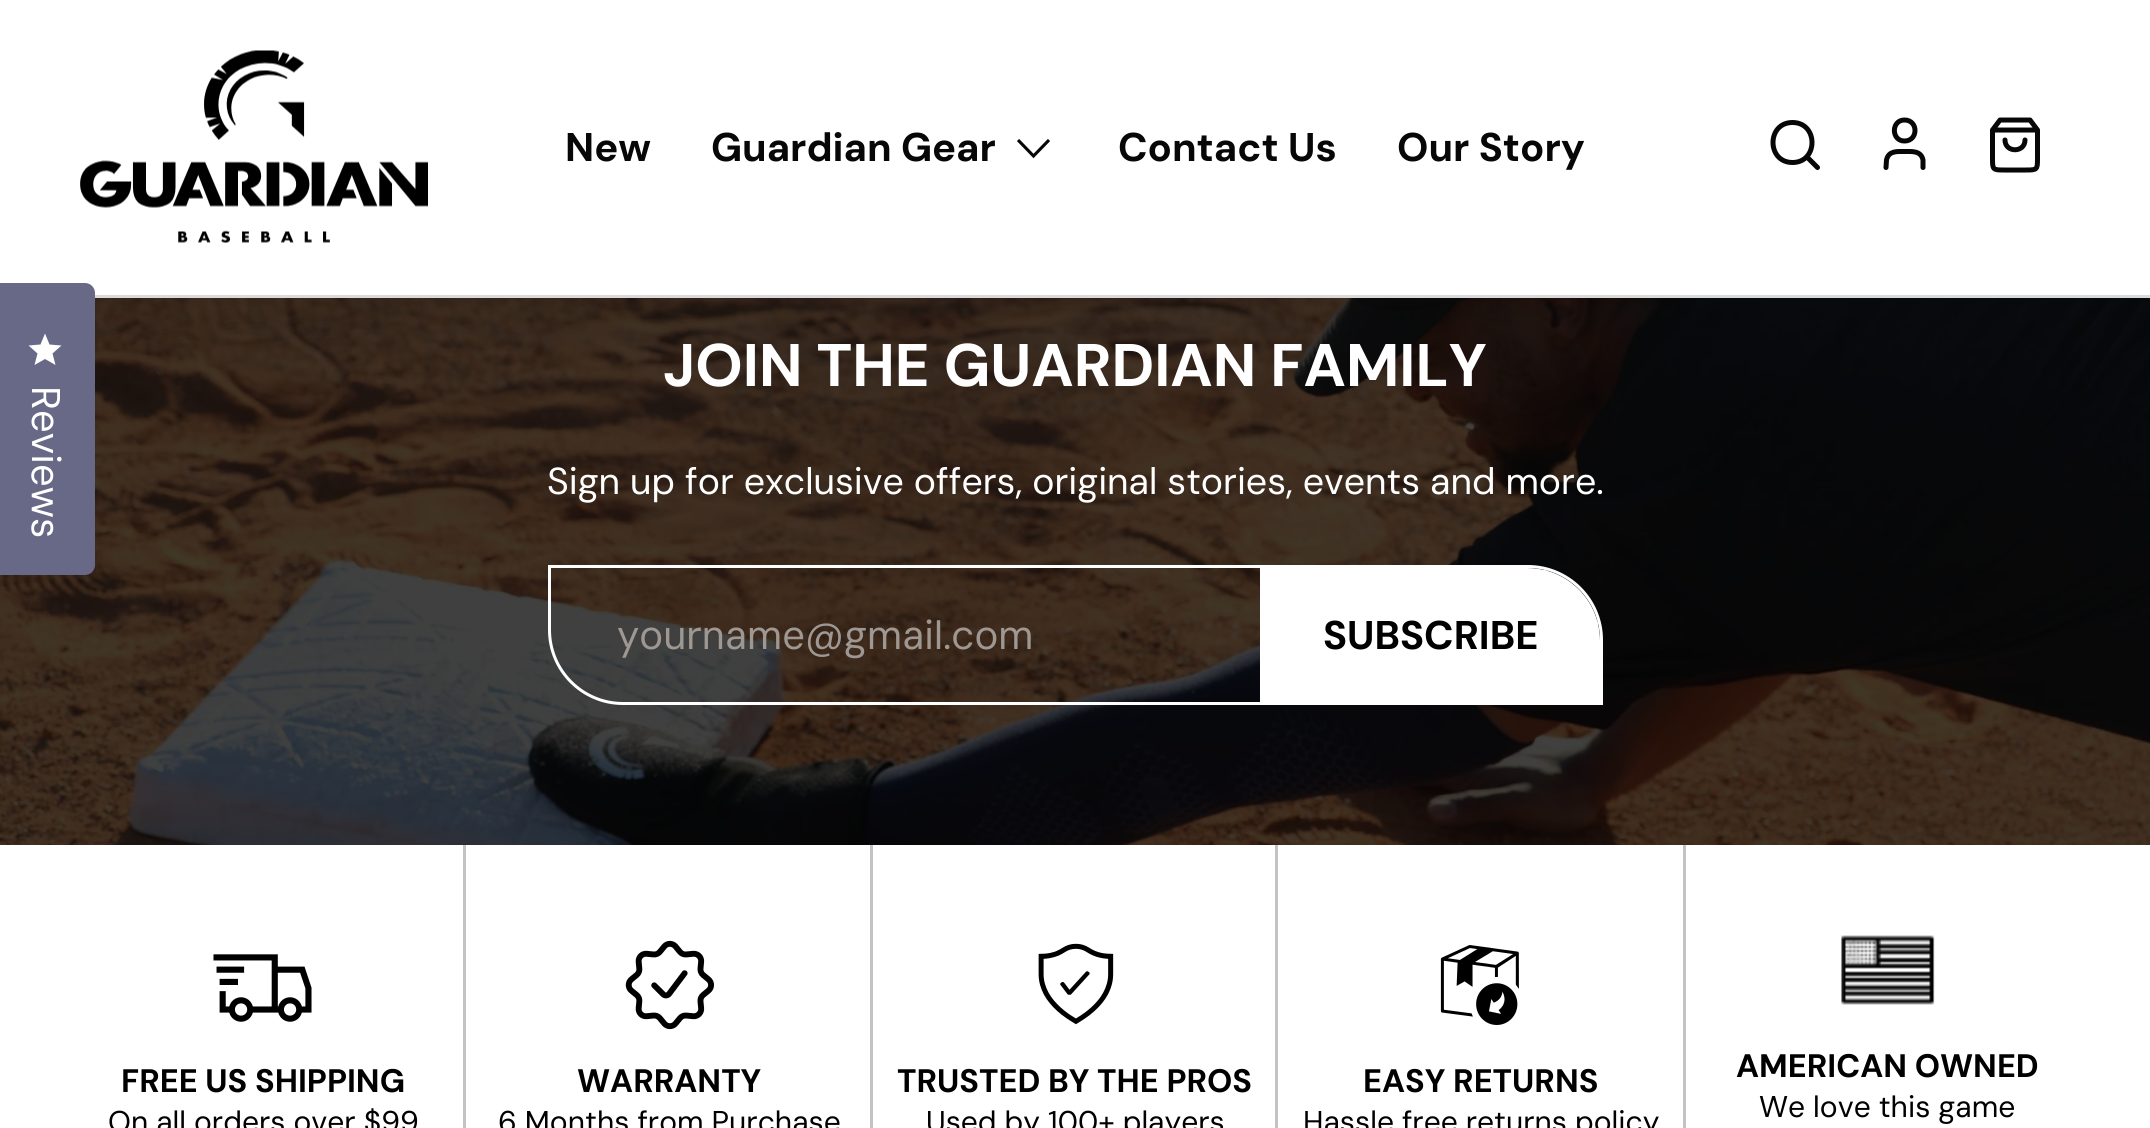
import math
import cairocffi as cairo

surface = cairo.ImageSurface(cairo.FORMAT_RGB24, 2150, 1128)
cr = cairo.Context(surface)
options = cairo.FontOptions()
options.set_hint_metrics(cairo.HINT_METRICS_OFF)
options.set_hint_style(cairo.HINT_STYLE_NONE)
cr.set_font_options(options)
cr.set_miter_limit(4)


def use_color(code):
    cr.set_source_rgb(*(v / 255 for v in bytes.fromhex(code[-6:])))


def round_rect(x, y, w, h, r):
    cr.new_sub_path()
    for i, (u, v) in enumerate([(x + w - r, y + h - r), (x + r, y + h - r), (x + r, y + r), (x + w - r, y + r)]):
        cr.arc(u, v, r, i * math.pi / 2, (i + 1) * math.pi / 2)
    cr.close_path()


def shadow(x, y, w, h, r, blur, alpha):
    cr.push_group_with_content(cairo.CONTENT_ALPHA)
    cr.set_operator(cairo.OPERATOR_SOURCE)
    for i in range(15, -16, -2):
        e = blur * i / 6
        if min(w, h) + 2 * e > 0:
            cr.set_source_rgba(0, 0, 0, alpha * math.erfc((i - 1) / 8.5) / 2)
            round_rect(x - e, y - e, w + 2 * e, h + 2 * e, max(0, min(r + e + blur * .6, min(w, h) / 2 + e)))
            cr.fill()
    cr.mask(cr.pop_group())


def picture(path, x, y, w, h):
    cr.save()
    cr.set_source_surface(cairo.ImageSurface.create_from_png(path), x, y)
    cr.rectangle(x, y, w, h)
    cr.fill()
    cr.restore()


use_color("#ffffff")
cr.paint()
picture("img2.png", 0, 298, 2150, 547)
use_color("#000000")
shadow(10, 0, 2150, 300, 0, 30, 0.1)
use_color("#ffffff")
cr.rectangle(0, 0, 2150, 295)
cr.fill()
use_color("#dadada")
cr.rectangle(95, 295, 2055, 3)
cr.fill()
picture("img1.png", 80, 50, 348, 193)
cr.select_font_face("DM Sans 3", cairo.FONT_SLANT_NORMAL, cairo.FONT_WEIGHT_BOLD)
cr.set_font_size(40)
use_color("#070707")
cr.move_to(565, 161)
cr.show_text("New")
cr.move_to(711, 161)
cr.show_text("Guardian Gear")
cr.new_path()
cr.move_to(1049, 140)
cr.line_to(1033.5, 156)
cr.line_to(1018, 140)
cr.set_line_width(3.1)
cr.stroke()
cr.move_to(1118, 161)
cr.show_text("Contact Us")
cr.move_to(1397, 161)
cr.show_text("Our Story")
cr.new_path()
cr.move_to(1792.5, 162.5)
cr.curve_to(1818.5, 162.5, 1818.5, 122.5, 1792.5, 122.5)
cr.curve_to(1766.5, 122.5, 1766.5, 162.5, 1792.5, 162.5)
cr.close_path()
cr.move_to(1817.5, 167.5)
cr.line_to(1807, 157)
cr.set_line_width(5)
cr.set_line_cap(cairo.LINE_CAP_ROUND)
cr.set_line_join(cairo.LINE_JOIN_ROUND)
cr.stroke()
cr.new_path()
cr.move_to(1923, 167.5)
cr.line_to(1923, 160)
cr.curve_to(1921, 150.5, 1912, 151.5, 1904.5, 151.5)
cr.curve_to(1897.5, 151.5, 1888.5, 150.5, 1886.5, 160)
cr.line_to(1886, 167.5)
cr.move_to(1904.5, 141)
cr.curve_to(1918.5, 141, 1918.5, 120, 1904.5, 120)
cr.curve_to(1891, 120, 1891, 141, 1904.5, 141)
cr.close_path()
cr.stroke()
cr.new_path()
cr.move_to(2000, 120)
cr.line_to(1992.5, 130)
cr.line_to(1992.5, 159)
cr.curve_to(1992.5, 169.5, 1993, 170, 2003.5, 170)
cr.line_to(2026.5, 170)
cr.curve_to(2037, 170, 2037.5, 169.5, 2037.5, 159)
cr.line_to(2037.5, 130)
cr.line_to(2030, 120)
cr.close_path()
cr.move_to(1992.5, 130)
cr.line_to(2037.5, 130)
cr.move_to(2025, 140)
cr.curve_to(2025, 153, 2005, 153, 2005, 140)
cr.stroke()
use_color("#676986")
cr.new_path()
cr.move_to(-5, 283)
cr.line_to(85, 283)
cr.curve_to(90.5, 283, 95, 287.5, 95, 293)
cr.line_to(95, 565)
cr.curve_to(95, 570.5, 90.5, 575, 85, 575)
cr.line_to(-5, 575)
cr.close_path()
cr.fill()
use_color("#ffffff")
cr.new_path()
cr.move_to(45, 359)
cr.line_to(55.5, 365)
cr.line_to(52.5, 353.5)
cr.line_to(61.5, 345.5)
cr.line_to(49.5, 344.5)
cr.line_to(45, 333.5)
cr.line_to(40.5, 344.5)
cr.line_to(28.5, 345.5)
cr.line_to(37.5, 353.5)
cr.line_to(34.5, 365)
cr.close_path()
cr.fill()
cr.select_font_face("DM Sans 3")
cr.save()
cr.translate(32, 386)
cr.rotate(90.1 * math.pi / 180)
cr.move_to(0, 0)
cr.show_text("Reviews")
cr.restore()
cr.select_font_face("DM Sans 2", cairo.FONT_SLANT_NORMAL, cairo.FONT_WEIGHT_BOLD)
cr.set_font_size(60)
cr.move_to(663, 386)
cr.show_text("JOIN THE GUARDIAN FAMILY")
cr.select_font_face("DM Sans 2")
cr.set_font_size(37.5)
cr.move_to(547, 494)
cr.show_text("Sign up for exclusive offers, original stories, events and more.")
cr.new_path()
cr.move_to(549.5, 566.5)
cr.line_to(1528, 566.5)
cr.curve_to(1568.5, 566.5, 1601.5, 599.5, 1601.5, 640)
cr.line_to(1601.5, 703.5)
cr.line_to(623, 703.5)
cr.curve_to(582.5, 703.5, 549.5, 670.5, 549.5, 630)
cr.close_path()
cr.set_line_width(3)
cr.set_line_cap(cairo.LINE_CAP_BUTT)
cr.set_line_join(cairo.LINE_JOIN_MITER)
cr.stroke()
cr.select_font_face("DM Sans 3")
cr.set_font_size(40)
use_color("#9e9792")
cr.move_to(617, 649)
cr.show_text("yourname@gmail.com")
cr.save()
cr.new_path()
cr.move_to(550, 568)
cr.line_to(1527, 568)
cr.curve_to(1567.5, 568, 1600, 600.5, 1600, 641)
cr.line_to(1600, 703)
cr.line_to(623, 703)
cr.curve_to(582.5, 703, 550, 670.5, 550, 630)
cr.close_path()
cr.clip()
gradient = cairo.LinearGradient(607, 513, 1583, 757)
gradient.add_color_stop_rgba(0.6, 0.882, 0.882, 0.882, 1)
gradient.add_color_stop_rgba(0.6, 1, 1, 1, 1)
gradient.add_color_stop_rgba(1, 1, 1, 1, 1)
cr.set_source(gradient)
cr.rectangle(1263, 570, 335, 130)
cr.fill()
cr.restore()
use_color("#ffffff")
cr.new_path()
cr.move_to(1260, 568)
cr.line_to(1260, 703)
cr.line_to(1600, 703)
cr.line_to(1600, 641)
cr.curve_to(1600, 634, 1599, 627, 1597, 620)
cr.line_to(1597, 700)
cr.line_to(1263, 700)
cr.line_to(1263, 571)
cr.line_to(1548, 571)
cr.curve_to(1541, 569, 1534, 568, 1527, 568)
cr.close_path()
cr.fill()
cr.select_font_face("DM Sans 3", cairo.FONT_SLANT_NORMAL, cairo.FONT_WEIGHT_BOLD)
use_color("#000000")
cr.move_to(1323, 649)
cr.show_text("SUBSCRIBE")
picture("img3.png", 213, 954, 99, 68)
cr.select_font_face("DM Sans", cairo.FONT_SLANT_NORMAL, cairo.FONT_WEIGHT_BOLD)
cr.set_font_size(32.5)
cr.move_to(121, 1092)
cr.show_text("FREE US SHIPPING")
cr.select_font_face("DM Sans")
cr.set_font_size(30)
cr.move_to(108, 1132)
cr.show_text("On all orders over $99")
use_color("#c3c3c3")
cr.rectangle(463, 845, 3, 283)
cr.fill()
picture("img4.png", 625, 940, 89, 90)
cr.select_font_face("DM Sans", cairo.FONT_SLANT_NORMAL, cairo.FONT_WEIGHT_BOLD)
cr.set_font_size(32.5)
use_color("#000000")
cr.move_to(577, 1092)
cr.show_text("WARRANTY")
cr.select_font_face("DM Sans")
cr.set_font_size(30)
cr.move_to(498, 1132)
cr.show_text("6 Months from Purchase")
use_color("#c3c3c3")
cr.rectangle(870, 845, 3, 283)
cr.fill()
picture("img5.png", 1038, 943, 76, 82)
cr.select_font_face("DM Sans", cairo.FONT_SLANT_NORMAL, cairo.FONT_WEIGHT_BOLD)
cr.set_font_size(32.5)
use_color("#000000")
cr.move_to(897, 1092)
cr.show_text("TRUSTED BY THE PROS")
cr.select_font_face("DM Sans")
cr.set_font_size(30)
cr.move_to(926, 1132)
cr.show_text("Used by 100+ players")
use_color("#c3c3c3")
cr.rectangle(1275, 845, 3, 283)
cr.fill()
picture("img6.png", 1440, 945, 79, 80)
cr.select_font_face("DM Sans", cairo.FONT_SLANT_NORMAL, cairo.FONT_WEIGHT_BOLD)
cr.set_font_size(32.5)
use_color("#000000")
cr.move_to(1363, 1092)
cr.show_text("EASY RETURNS")
cr.select_font_face("DM Sans")
cr.set_font_size(30)
cr.move_to(1303, 1132)
cr.show_text("Hassle free returns policy")
use_color("#c3c3c3")
cr.rectangle(1683, 845, 3, 283)
cr.fill()
picture("img7.png", 1841, 935, 94, 70)
cr.select_font_face("DM Sans", cairo.FONT_SLANT_NORMAL, cairo.FONT_WEIGHT_BOLD)
cr.set_font_size(32.5)
use_color("#000000")
cr.move_to(1736, 1077)
cr.show_text("AMERICAN OWNED")
cr.select_font_face("DM Sans")
cr.set_font_size(30)
cr.move_to(1759, 1117)
cr.show_text("We love this game")
surface.write_to_png("result.png")
